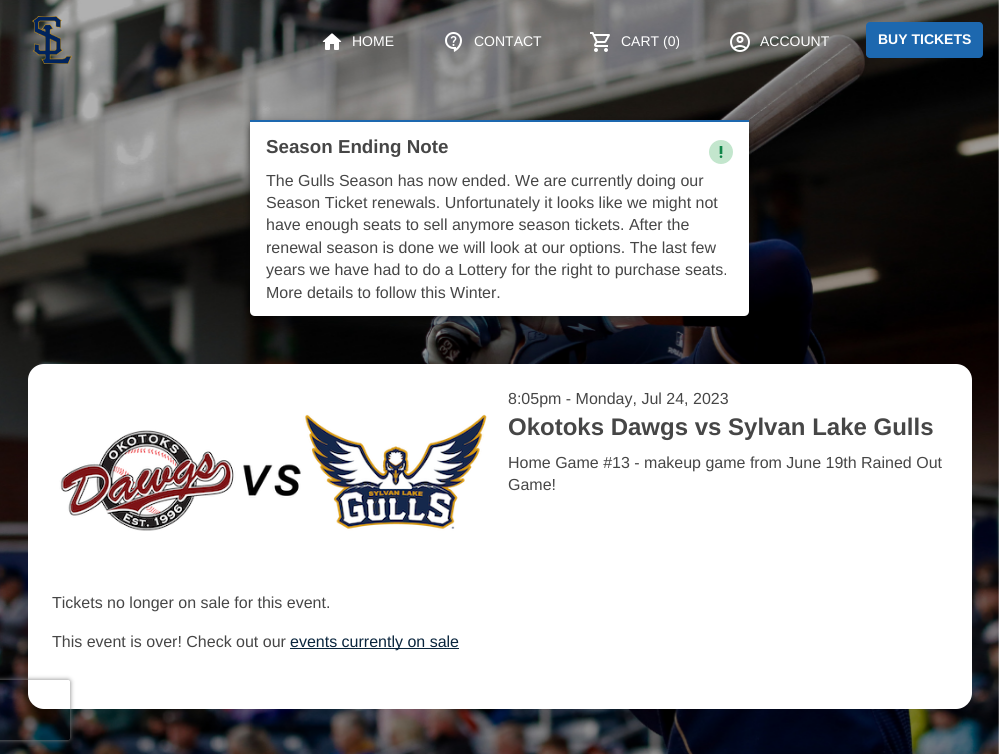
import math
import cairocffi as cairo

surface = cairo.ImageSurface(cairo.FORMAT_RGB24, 999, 754)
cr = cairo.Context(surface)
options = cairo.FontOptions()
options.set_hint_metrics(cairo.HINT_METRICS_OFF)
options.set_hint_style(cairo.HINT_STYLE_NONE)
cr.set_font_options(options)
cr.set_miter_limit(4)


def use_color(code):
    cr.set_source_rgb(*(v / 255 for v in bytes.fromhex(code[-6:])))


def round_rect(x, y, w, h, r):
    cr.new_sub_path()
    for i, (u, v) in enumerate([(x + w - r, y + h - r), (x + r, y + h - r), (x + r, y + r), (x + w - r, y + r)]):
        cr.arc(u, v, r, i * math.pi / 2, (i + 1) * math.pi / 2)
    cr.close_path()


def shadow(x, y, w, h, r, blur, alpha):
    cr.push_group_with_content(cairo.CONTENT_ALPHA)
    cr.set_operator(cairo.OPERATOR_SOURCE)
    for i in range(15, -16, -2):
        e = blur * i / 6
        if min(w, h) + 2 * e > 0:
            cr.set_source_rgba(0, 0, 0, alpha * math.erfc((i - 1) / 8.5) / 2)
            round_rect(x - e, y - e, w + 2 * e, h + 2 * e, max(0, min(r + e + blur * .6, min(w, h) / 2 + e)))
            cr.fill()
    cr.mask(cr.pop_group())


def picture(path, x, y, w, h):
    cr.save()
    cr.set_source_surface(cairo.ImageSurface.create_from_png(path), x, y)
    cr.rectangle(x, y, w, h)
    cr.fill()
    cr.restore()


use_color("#ffffff")
cr.paint()
picture("img1.png", 0, 0, 999, 754)
picture("img2.png", 32, 16, 40, 48)
picture("img3.png", 322, 33, 20, 17)
cr.select_font_face("Liberation Sans")
cr.set_font_size(14)
use_color("#ffffff")
cr.move_to(352, 46)
cr.show_text("HOME")
picture("img4.png", 445, 32, 17, 20)
cr.move_to(474, 46)
cr.show_text("CONTACT")
picture("img5.png", 590, 32, 20, 20)
cr.move_to(621, 46)
cr.show_text("CART (0)")
picture("img6.png", 730, 32, 20, 20)
cr.move_to(760, 46)
cr.show_text("ACCOUNT")
use_color("#1d68af")
round_rect(866, 22, 117, 36, 4)
cr.fill()
cr.select_font_face("Liberation Sans", cairo.FONT_SLANT_NORMAL, cairo.FONT_WEIGHT_BOLD)
use_color("#ffffff")
cr.move_to(878, 44)
cr.show_text("BUY TICKETS")
use_color("#000000")
shadow(250, 124, 499, 196, 5, 4, 0.5)
use_color("#ffffff")
cr.new_path()
cr.move_to(250, 120)
cr.line_to(749, 120)
cr.line_to(749, 311)
cr.curve_to(749, 314, 747, 316, 744, 316)
cr.line_to(255, 316)
cr.curve_to(252, 316, 250, 314, 250, 311)
cr.close_path()
cr.fill()
use_color("#1d68af")
cr.rectangle(250, 120, 499, 2)
cr.fill()
cr.set_font_size(18.75)
use_color("#464646")
cr.move_to(266, 153)
cr.show_text("Season Ending Note")
use_color("#c3e6cd")
cr.new_path()
cr.arc(721, 152, 12, 0, 2 * math.pi)
cr.fill()
picture("img7.png", 719, 146, 4, 12)
cr.select_font_face("Liberation Sans")
cr.set_font_size(16)
use_color("#464646")
cr.move_to(266, 186)
cr.show_text("The Gulls Season has now ended. We are currently doing our")
cr.move_to(266, 208)
cr.show_text("Season Ticket renewals. Unfortunately it looks like we might not")
cr.move_to(266, 230)
cr.show_text("have enough seats to sell anymore season tickets. After the")
cr.move_to(266, 253)
cr.show_text("renewal season is done we will look at our options. The last few")
cr.move_to(266, 275)
cr.show_text("years we have had to do a Lottery for the right to purchase seats.")
cr.move_to(266, 298)
cr.show_text("More details to follow this Winter.")
use_color("#ffffff")
round_rect(28, 364, 944, 345, 16)
cr.fill()
picture("img8.png", 59, 414, 428, 117)
use_color("#464646")
cr.move_to(508, 404)
cr.show_text("8:05pm - Monday, Jul 24, 2023")
cr.select_font_face("Liberation Sans", cairo.FONT_SLANT_NORMAL, cairo.FONT_WEIGHT_BOLD)
cr.set_font_size(24)
cr.move_to(508, 435)
cr.show_text("Okotoks Dawgs vs Sylvan Lake Gulls")
cr.select_font_face("Liberation Sans")
cr.set_font_size(16)
cr.move_to(508, 468)
cr.show_text("Home Game #13 - makeup game from June 19th Rained Out")
cr.move_to(508, 490)
cr.show_text("Game!")
cr.move_to(52, 608)
cr.show_text("Tickets no longer on sale for this event.")
cr.move_to(52, 647)
cr.show_text("This event is over! Check out our")
use_color("#0a253d")
cr.rectangle(290, 648, 169, 1)
cr.fill()
cr.move_to(290, 647)
cr.show_text("events currently on sale")
cr.save()
cr.set_fill_rule(cairo.FILL_RULE_EVEN_ODD)
cr.new_path()
cr.move_to(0, 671)
cr.line_to(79, 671)
cr.line_to(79, 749)
cr.line_to(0, 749)
cr.close_path()
cr.move_to(-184, 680)
cr.line_to(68, 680)
cr.curve_to(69, 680, 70, 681, 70, 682)
cr.line_to(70, 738)
cr.curve_to(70, 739, 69, 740, 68, 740)
cr.line_to(-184, 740)
cr.curve_to(-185, 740, -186, 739, -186, 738)
cr.line_to(-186, 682)
cr.curve_to(-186, 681, -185, 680, -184, 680)
cr.close_path()
cr.clip()
use_color("#808080")
shadow(-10, 680, 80, 60, 2, 2.5, 1)
cr.restore()
surface.write_to_png("result.png")
